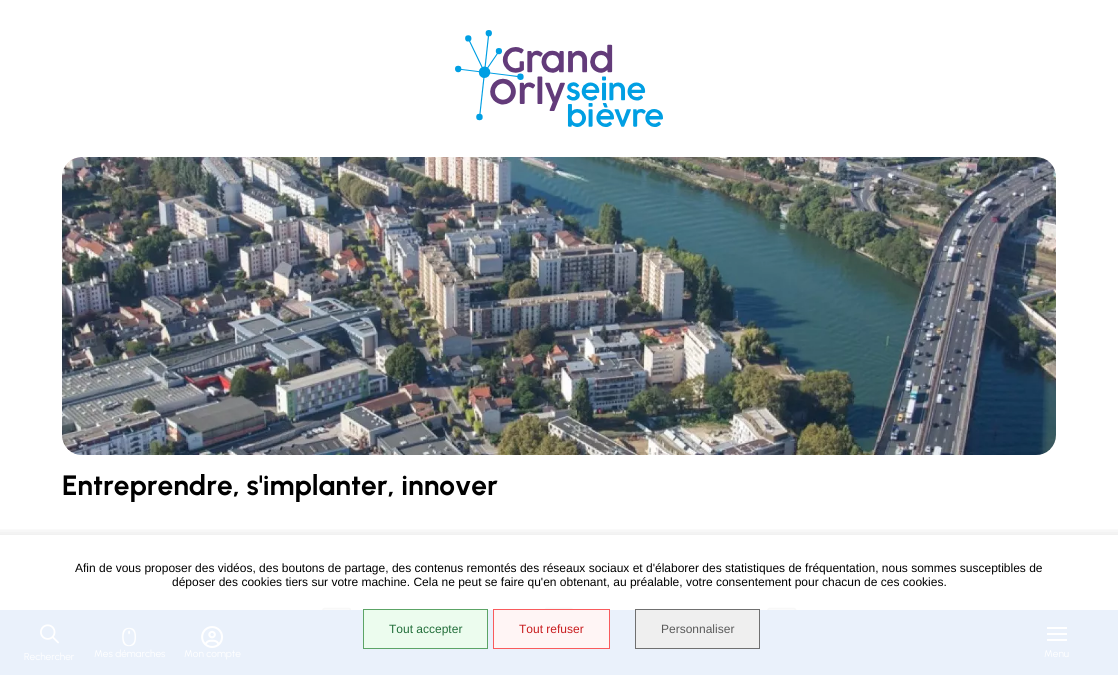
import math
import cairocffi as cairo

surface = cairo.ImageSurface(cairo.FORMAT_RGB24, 1118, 675)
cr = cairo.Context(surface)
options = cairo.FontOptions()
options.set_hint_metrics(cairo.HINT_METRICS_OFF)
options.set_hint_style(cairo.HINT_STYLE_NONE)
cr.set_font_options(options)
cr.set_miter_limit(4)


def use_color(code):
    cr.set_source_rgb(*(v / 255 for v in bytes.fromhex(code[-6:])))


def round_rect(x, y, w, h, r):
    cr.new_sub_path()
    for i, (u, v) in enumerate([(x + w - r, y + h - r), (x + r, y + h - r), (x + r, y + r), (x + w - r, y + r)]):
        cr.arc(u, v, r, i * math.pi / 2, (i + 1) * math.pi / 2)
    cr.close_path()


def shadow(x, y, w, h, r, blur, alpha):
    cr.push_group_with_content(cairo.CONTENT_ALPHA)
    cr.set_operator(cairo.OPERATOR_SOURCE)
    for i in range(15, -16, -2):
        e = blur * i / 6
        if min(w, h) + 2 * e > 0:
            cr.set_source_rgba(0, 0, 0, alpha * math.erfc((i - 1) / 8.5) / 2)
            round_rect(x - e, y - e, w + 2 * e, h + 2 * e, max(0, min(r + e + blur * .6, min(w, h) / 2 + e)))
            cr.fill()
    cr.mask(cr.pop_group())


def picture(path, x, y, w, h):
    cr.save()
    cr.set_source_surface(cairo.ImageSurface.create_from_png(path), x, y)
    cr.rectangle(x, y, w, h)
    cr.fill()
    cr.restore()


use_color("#ffffff")
cr.paint()
picture("img1.png", 455, 30, 208, 97)
use_color("#f7f7f7")
round_rect(62, 157, 994, 298, 20)
cr.fill()
picture("img2.png", 62, 157, 994, 298)
cr.select_font_face("Urbanist", cairo.FONT_SLANT_NORMAL, cairo.FONT_WEIGHT_BOLD)
cr.set_font_size(28)
use_color("#000000")
cr.move_to(62, 495)
cr.show_text("Entreprendre, s'implanter, innover")
picture("img3.png", 322, 607, 29, 3)
picture("img4.png", 544, 607, 29, 2)
picture("img5.png", 767, 607, 30, 3)
use_color("#eaf1fb")
cr.rectangle(0, 610, 1118, 65)
cr.fill()
picture("img6.png", 40, 624, 19, 20)
cr.select_font_face("Urbanist")
cr.set_font_size(10)
use_color("#ffffff")
cr.move_to(24, 660)
cr.show_text("Rechercher")
picture("img7.png", 122, 627, 14, 20)
cr.move_to(94, 657)
cr.show_text("Mes démarches")
picture("img8.png", 201, 626, 23, 22)
cr.move_to(184, 657)
cr.show_text("Mon compte")
cr.rectangle(1047, 627, 20, 2)
cr.fill()
cr.rectangle(1047, 633, 20, 2)
cr.fill()
cr.rectangle(1047, 639, 20, 2)
cr.fill()
cr.move_to(1044, 657)
cr.show_text("Menu")
cr.save()
cr.rectangle(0, 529, 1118, 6)
cr.clip()
use_color("#000000")
shadow(-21, 538, 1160, 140, 0, 7, 0.2)
cr.restore()
cr.select_font_face("Liberation Sans")
cr.set_font_size(12)
use_color("#000000")
cr.move_to(75, 572)
cr.show_text("Afin de vous proposer des vidéos, des boutons de partage, des contenus remontés des réseaux sociaux et d'élaborer des statistiques de fréquentation, nous sommes susceptibles de")
cr.move_to(172, 586)
cr.show_text("déposer des cookies tiers sur votre machine. Cela ne peut se faire qu'en obtenant, au préalable, votre consentement pour chacun de ces cookies.")
use_color("#ecfcee")
cr.rectangle(363.5, 609.5, 124, 39)
cr.fill_preserve()
use_color("#5ca466")
cr.set_line_width(1)
cr.stroke()
use_color("#226e3a")
cr.move_to(389, 633)
cr.show_text("Tout accepter")
use_color("#fff5f5")
cr.rectangle(493.5, 609.5, 116, 39)
cr.fill_preserve()
use_color("#f95b5d")
cr.stroke()
use_color("#c81c1e")
cr.move_to(519, 633)
cr.show_text("Tout refuser")
use_color("#efefef")
cr.rectangle(635.5, 609.5, 124, 39)
cr.fill_preserve()
use_color("#707070")
cr.stroke()
use_color("#5a5a5a")
cr.move_to(661, 633)
cr.show_text("Personnaliser")
surface.write_to_png("result.png")
